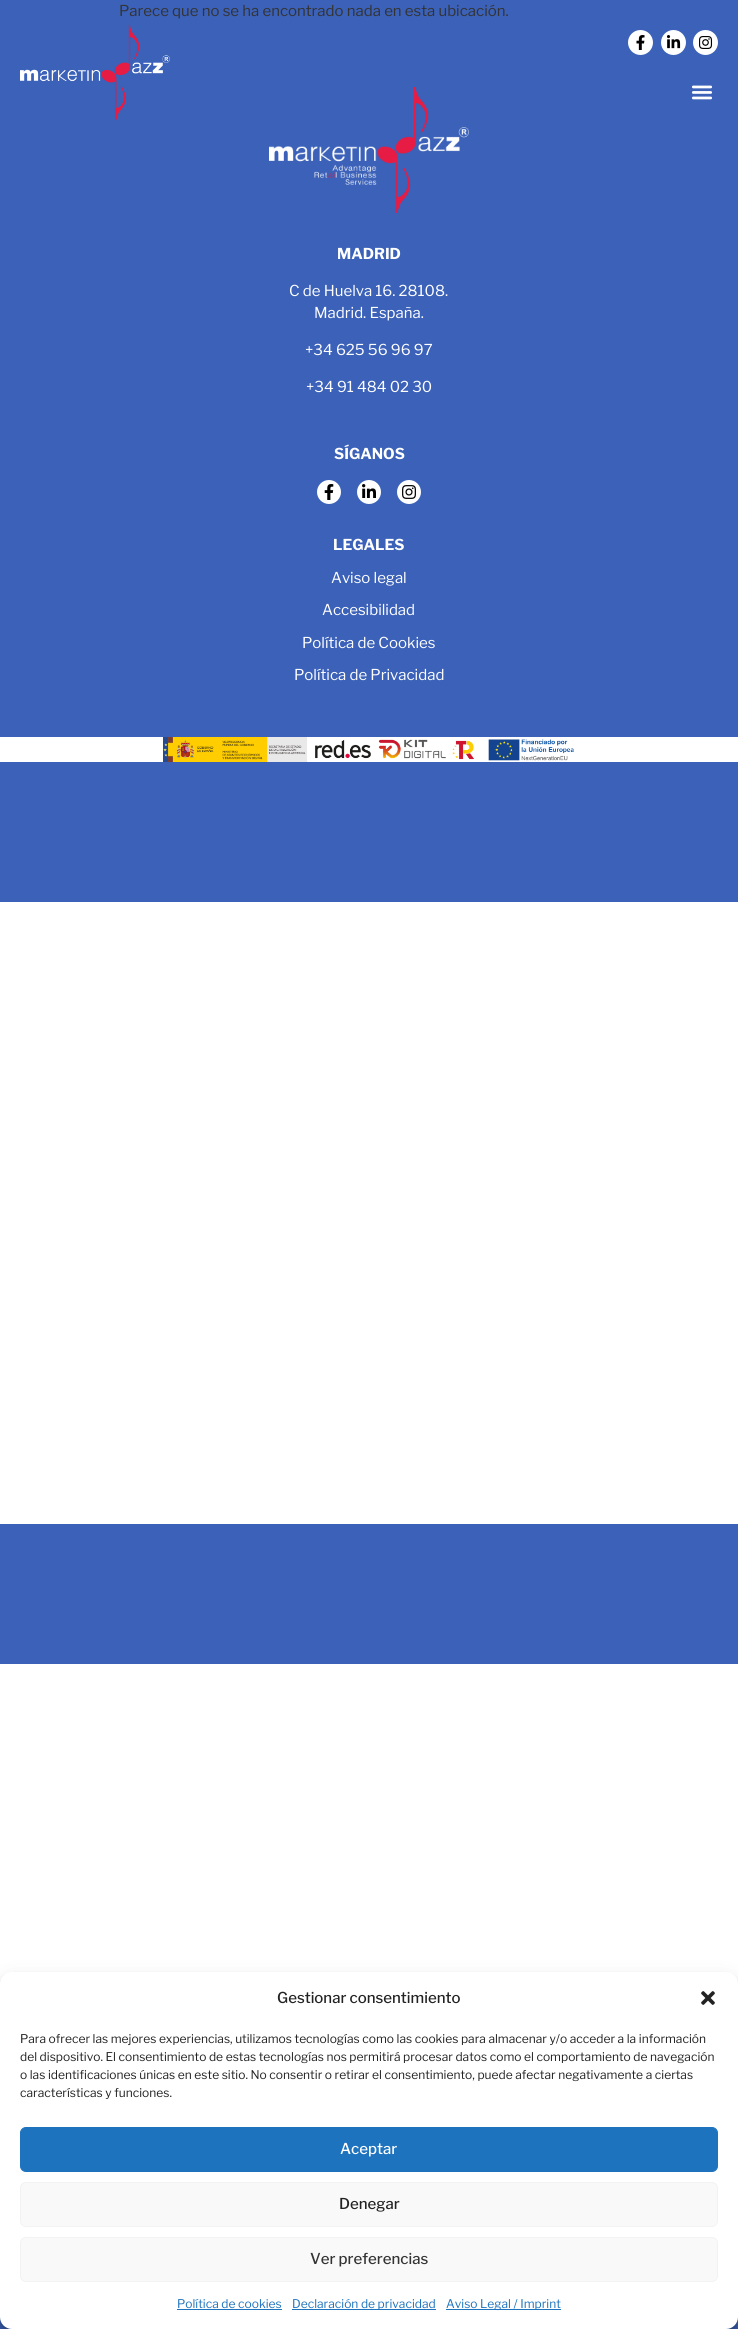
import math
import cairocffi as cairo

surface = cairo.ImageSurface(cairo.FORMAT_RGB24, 738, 2329)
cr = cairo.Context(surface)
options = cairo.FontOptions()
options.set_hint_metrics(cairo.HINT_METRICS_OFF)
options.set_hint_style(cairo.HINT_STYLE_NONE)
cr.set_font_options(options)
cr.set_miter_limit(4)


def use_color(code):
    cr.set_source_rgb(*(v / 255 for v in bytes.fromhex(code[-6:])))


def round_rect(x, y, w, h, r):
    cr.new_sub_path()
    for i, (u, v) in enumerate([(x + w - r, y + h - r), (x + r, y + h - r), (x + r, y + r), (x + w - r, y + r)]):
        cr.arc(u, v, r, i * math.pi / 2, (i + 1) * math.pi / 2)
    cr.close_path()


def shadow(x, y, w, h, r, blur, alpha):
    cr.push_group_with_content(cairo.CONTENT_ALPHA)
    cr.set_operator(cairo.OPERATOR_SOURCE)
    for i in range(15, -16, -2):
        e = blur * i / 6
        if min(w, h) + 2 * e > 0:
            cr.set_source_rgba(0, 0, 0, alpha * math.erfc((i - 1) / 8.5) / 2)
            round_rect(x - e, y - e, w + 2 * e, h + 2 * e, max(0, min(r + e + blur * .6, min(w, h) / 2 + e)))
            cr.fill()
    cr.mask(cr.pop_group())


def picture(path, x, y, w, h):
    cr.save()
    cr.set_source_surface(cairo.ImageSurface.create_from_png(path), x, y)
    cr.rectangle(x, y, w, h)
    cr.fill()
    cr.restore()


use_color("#ffffff")
cr.paint()
use_color("#3b61b8")
cr.rectangle(0, 0, 738, 737)
cr.fill()
cr.rectangle(0, 762, 738, 140)
cr.fill()
cr.rectangle(0, 1524, 738, 140)
cr.fill()
cr.rectangle(0, 2317, 738, 12)
cr.fill()
cr.select_font_face("Libre Franklin")
cr.set_font_size(15)
use_color("#333333")
cr.move_to(119, 16)
cr.show_text("Parece que no se ha encontrado nada en esta ubicación.")
picture("img1.png", 20, 25, 150, 95)
picture("img2.png", 691, 85, 22, 15)
use_color("#ffffff")
cr.arc(640.5, 42.5, 12.5, 0, 2 * math.pi)
cr.fill()
picture("img3.png", 636, 35, 9, 15)
cr.arc(673.5, 42.5, 12.5, 0, 2 * math.pi)
cr.fill()
picture("img4.png", 667, 35, 14, 14)
cr.arc(705.5, 42.5, 12.5, 0, 2 * math.pi)
cr.fill()
picture("img5.png", 699, 36, 14, 13)
picture("img6.png", 269, 87, 200, 126)
cr.select_font_face("Libre Franklin", cairo.FONT_SLANT_NORMAL, cairo.FONT_WEIGHT_BOLD)
cr.move_to(337, 259)
cr.show_text("MADRID")
cr.select_font_face("Libre Franklin")
cr.move_to(289, 296)
cr.show_text("C de Huelva 16. 28108.")
cr.move_to(314, 318)
cr.show_text("Madrid. España.")
cr.move_to(305, 355)
cr.show_text("+34 625 56 96 97")
cr.move_to(306, 392)
cr.show_text("+34 91 484 02 30")
cr.select_font_face("Libre Franklin", cairo.FONT_SLANT_NORMAL, cairo.FONT_WEIGHT_BOLD)
cr.move_to(334, 459)
cr.show_text("SÍGANOS")
cr.new_path()
cr.arc(329, 492, 12, 0, 2 * math.pi)
cr.fill()
picture("img7.png", 324, 484, 10, 16)
cr.arc(369, 492, 12, 0, 2 * math.pi)
cr.fill()
picture("img8.png", 362, 484, 14, 14)
cr.arc(409, 492, 12, 0, 2 * math.pi)
cr.fill()
picture("img9.png", 402, 485, 14, 14)
cr.move_to(333, 550)
cr.show_text("LEGALES")
cr.select_font_face("Libre Franklin")
cr.move_to(331, 583)
cr.show_text("Aviso legal")
cr.move_to(322, 615)
cr.show_text("Accesibilidad")
cr.move_to(302, 648)
cr.show_text("Política de Cookies")
cr.move_to(294, 680)
cr.show_text("Política de Privacidad")
picture("img10.png", 163, 737, 411, 25)
use_color("#000000")
shadow(0, 1978, 738, 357, 12, 3, 0.23)
shadow(0, 1982, 738, 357, 12, 10, 0.19)
use_color("#ffffff")
round_rect(0, 1972, 738, 357, 12)
cr.fill()
cr.select_font_face("Libre Franklin Medium")
use_color("#222222")
cr.move_to(277, 2003)
cr.show_text("Gestionar consentimiento")
picture("img11.png", 701, 1991, 14, 14)
cr.select_font_face("Libre Franklin")
cr.set_font_size(12)
cr.move_to(20, 2043)
cr.show_text("Para ofrecer las mejores experiencias, utilizamos tecnologías como las cookies para almacenar y/o acceder a la información")
cr.move_to(20, 2061)
cr.show_text("del dispositivo. El consentimiento de estas tecnologías nos permitirá procesar datos como el comportamiento de navegación")
cr.move_to(20, 2079)
cr.show_text("o las identificaciones únicas en este sitio. No consentir o retirar el consentimiento, puede afectar negativamente a ciertas")
cr.move_to(20, 2097)
cr.show_text("características y funciones.")
use_color("#1e73be")
round_rect(20.5, 2127.5, 697, 44, 5.5)
cr.fill_preserve()
cr.set_line_width(1)
cr.stroke()
cr.select_font_face("Libre Franklin Medium")
cr.set_font_size(15)
use_color("#ffffff")
cr.move_to(340, 2154)
cr.show_text("Aceptar")
use_color("#f9f9f9")
round_rect(20.5, 2182.5, 697, 44, 5.5)
cr.fill_preserve()
use_color("#f2f2f2")
cr.stroke()
use_color("#222222")
cr.move_to(339, 2209)
cr.show_text("Denegar")
use_color("#f9f9f9")
round_rect(20.5, 2237.5, 697, 44, 5.5)
cr.fill_preserve()
use_color("#f2f2f2")
cr.stroke()
use_color("#333333")
cr.move_to(310, 2264)
cr.show_text("Ver preferencias")
cr.select_font_face("Libre Franklin")
cr.set_font_size(12)
use_color("#1e73be")
cr.move_to(177, 2308)
cr.show_text("Política de cookies")
cr.rectangle(177, 2309, 105, 1)
cr.fill()
cr.rectangle(292, 2309, 144, 1)
cr.fill()
cr.move_to(292, 2308)
cr.show_text("Declaración de privacidad")
cr.rectangle(446, 2309, 115, 1)
cr.fill()
cr.move_to(446, 2308)
cr.show_text("Aviso Legal / Imprint")
surface.write_to_png("result.png")
